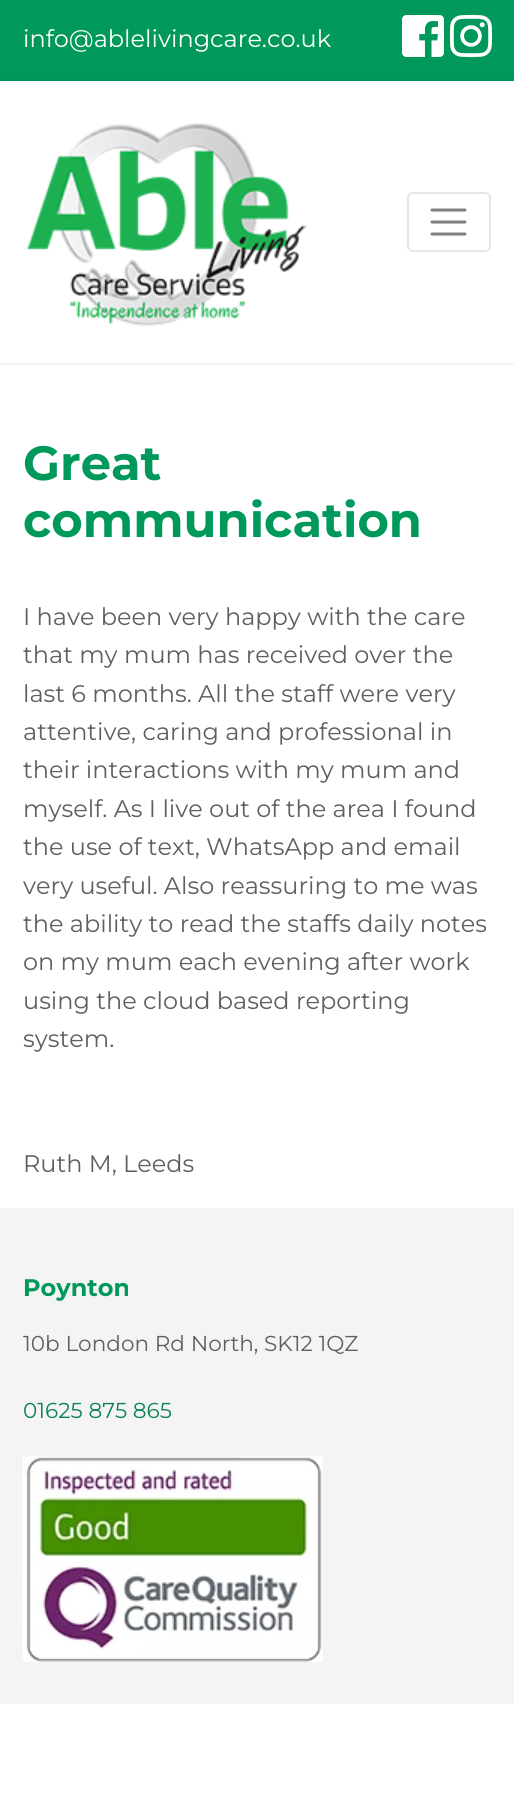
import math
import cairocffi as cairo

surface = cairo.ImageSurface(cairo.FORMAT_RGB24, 514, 1812)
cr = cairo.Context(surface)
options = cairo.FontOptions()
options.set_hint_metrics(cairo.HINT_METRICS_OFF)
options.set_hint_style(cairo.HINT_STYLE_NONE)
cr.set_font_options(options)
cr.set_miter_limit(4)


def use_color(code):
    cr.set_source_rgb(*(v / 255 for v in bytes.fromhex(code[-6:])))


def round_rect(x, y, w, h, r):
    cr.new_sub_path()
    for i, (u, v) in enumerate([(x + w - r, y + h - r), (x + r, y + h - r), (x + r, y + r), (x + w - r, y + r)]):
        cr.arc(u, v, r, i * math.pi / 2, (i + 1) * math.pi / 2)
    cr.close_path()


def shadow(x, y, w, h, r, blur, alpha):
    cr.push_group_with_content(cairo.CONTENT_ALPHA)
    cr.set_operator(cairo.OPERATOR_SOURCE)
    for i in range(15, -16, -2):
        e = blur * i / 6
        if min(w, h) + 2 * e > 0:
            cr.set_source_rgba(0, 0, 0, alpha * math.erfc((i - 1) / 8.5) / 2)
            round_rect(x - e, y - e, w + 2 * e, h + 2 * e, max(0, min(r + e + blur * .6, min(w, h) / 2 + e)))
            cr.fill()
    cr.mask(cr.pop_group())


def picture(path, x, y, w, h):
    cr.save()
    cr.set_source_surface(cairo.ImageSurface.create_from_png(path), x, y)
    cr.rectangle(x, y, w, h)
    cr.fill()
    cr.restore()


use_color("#ffffff")
cr.paint()
use_color("#00995b")
cr.rectangle(0, 0, 514, 81)
cr.fill()
cr.select_font_face("Montserrat Thin")
cr.set_font_size(24)
use_color("#ffffff")
cr.move_to(23, 47)
cr.show_text("info@ablelivingcare.co.uk")
picture("img1.png", 402, 15, 42, 42)
picture("img2.png", 450, 15, 42, 42)
use_color("#384554")
shadow(0, 81, 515, 282, 0, 1.5, 0.2)
use_color("#ffffff")
cr.rectangle(0, 81, 514, 282)
cr.fill()
picture("img3.png", 26, 123, 281, 203)
round_rect(408, 193, 82, 58, 5)
use_color("#e6e6e6")
cr.stroke()
cr.new_path()
cr.move_to(432, 210)
cr.line_to(465, 210)
cr.move_to(432, 222)
cr.line_to(465, 222)
cr.move_to(432, 234)
cr.line_to(465, 234)
use_color("#808080")
cr.set_line_width(3)
cr.set_line_cap(cairo.LINE_CAP_ROUND)
cr.stroke()
cr.select_font_face("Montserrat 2 Thin")
cr.set_font_size(48)
use_color("#00995b")
cr.move_to(23, 480)
cr.show_text("Great")
cr.move_to(23, 537)
cr.show_text("communication")
cr.select_font_face("Montserrat Thin")
cr.set_font_size(24)
use_color("#5f5f5f")
cr.move_to(23, 625)
cr.show_text("I have been very happy with the care")
cr.move_to(23, 663)
cr.show_text("that my mum has received over the")
cr.move_to(23, 702)
cr.show_text("last 6 months. All the staff were very")
cr.move_to(23, 740)
cr.show_text("attentive, caring and professional in")
cr.move_to(23, 778)
cr.show_text("their interactions with my mum and")
cr.move_to(23, 817)
cr.show_text("myself. As I live out of the area I found")
cr.move_to(23, 855)
cr.show_text("the use of text, WhatsApp and email")
cr.move_to(23, 894)
cr.show_text("very useful. Also reassuring to me was")
cr.move_to(23, 932)
cr.show_text("the ability to read the staffs daily notes")
cr.move_to(23, 970)
cr.show_text("on my mum each evening after work")
cr.move_to(23, 1009)
cr.show_text("using the cloud based reporting")
cr.move_to(23, 1047)
cr.show_text("system.")
cr.move_to(23, 1172)
cr.show_text("Ruth M, Leeds")
use_color("#f4f4f4")
cr.rectangle(0, 1208, 514, 496)
cr.fill()
cr.select_font_face("Montserrat 2 Thin")
use_color("#00995b")
cr.move_to(23, 1296)
cr.show_text("Poynton")
cr.select_font_face("Montserrat Thin")
cr.set_font_size(21.6)
use_color("#5f5f5f")
cr.move_to(23, 1351)
cr.show_text("10b London Rd North, SK12 1QZ")
use_color("#0d8353")
cr.move_to(23, 1418)
cr.show_text("01625 875 865")
picture("img4.png", 22, 1456, 301, 206)
surface.write_to_png("result.png")
